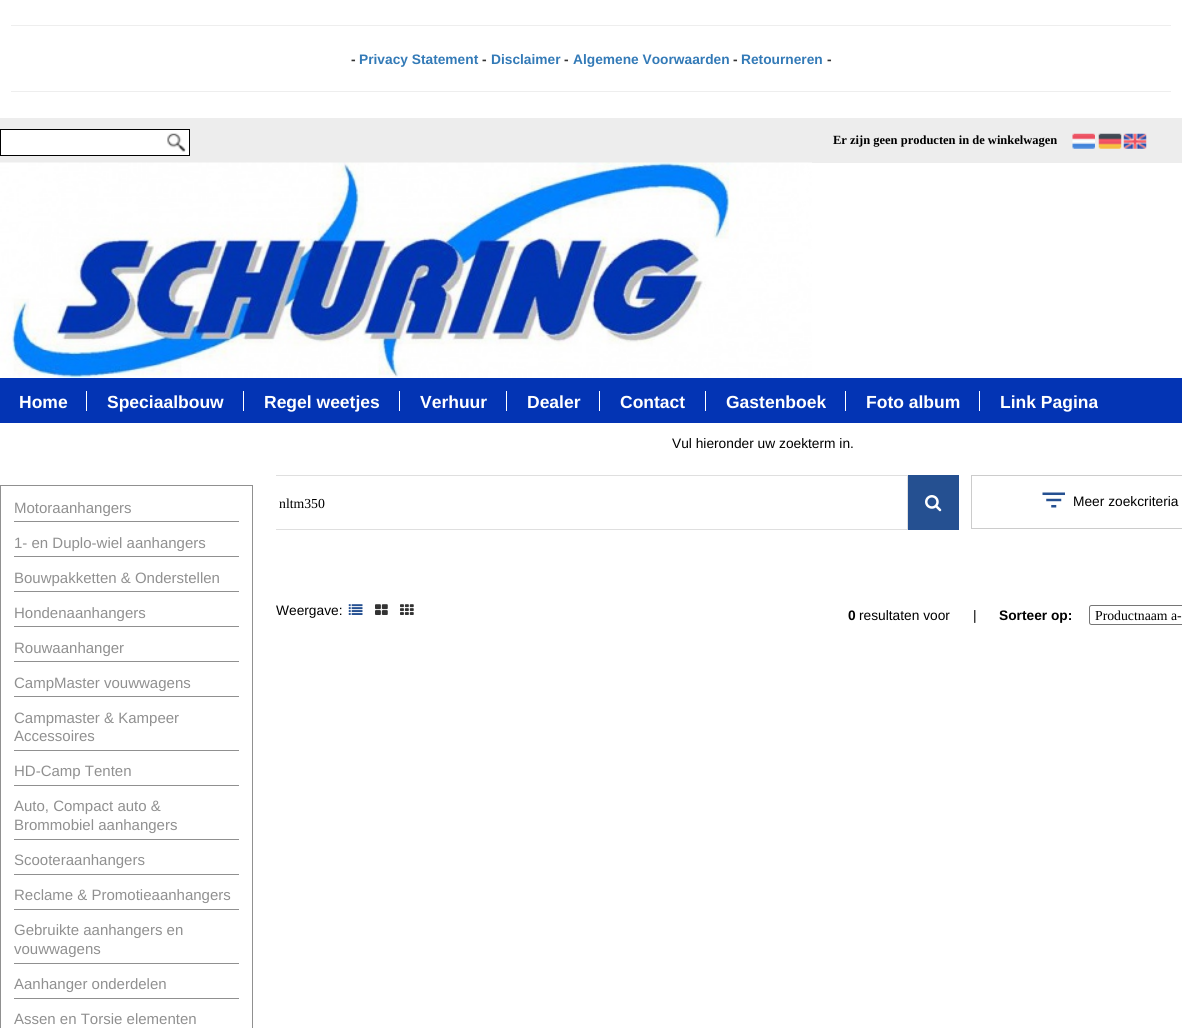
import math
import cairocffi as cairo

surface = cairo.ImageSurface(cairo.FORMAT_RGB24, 1182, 1028)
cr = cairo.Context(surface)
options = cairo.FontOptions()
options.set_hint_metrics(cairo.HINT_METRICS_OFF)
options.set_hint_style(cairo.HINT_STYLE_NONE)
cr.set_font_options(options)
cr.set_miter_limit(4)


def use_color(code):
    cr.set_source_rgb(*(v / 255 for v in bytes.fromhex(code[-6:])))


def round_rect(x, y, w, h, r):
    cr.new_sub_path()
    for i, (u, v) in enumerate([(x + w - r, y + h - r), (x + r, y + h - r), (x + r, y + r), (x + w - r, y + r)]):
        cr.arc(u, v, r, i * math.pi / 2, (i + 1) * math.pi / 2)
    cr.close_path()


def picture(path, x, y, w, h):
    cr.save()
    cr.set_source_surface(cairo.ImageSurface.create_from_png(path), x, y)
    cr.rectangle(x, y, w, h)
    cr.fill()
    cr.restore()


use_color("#ffffff")
cr.paint()
use_color("#eeeeee")
cr.rectangle(11, 25, 1160, 1)
cr.fill()
cr.select_font_face("Liberation Sans", cairo.FONT_SLANT_NORMAL, cairo.FONT_WEIGHT_BOLD)
cr.set_font_size(13.75)
use_color("#333333")
cr.move_to(351, 64)
cr.show_text("-")
use_color("#337ab7")
cr.move_to(359, 64)
cr.show_text("Privacy Statement")
use_color("#333333")
cr.move_to(482, 64)
cr.show_text("-")
use_color("#337ab7")
cr.move_to(491, 64)
cr.show_text("Disclaimer")
use_color("#333333")
cr.move_to(564, 64)
cr.show_text("-")
use_color("#337ab7")
cr.move_to(573, 64)
cr.show_text("Algemene Voorwaarden")
use_color("#333333")
cr.move_to(733, 64)
cr.show_text("-")
use_color("#337ab7")
cr.move_to(741, 64)
cr.show_text("Retourneren")
use_color("#333333")
cr.move_to(827, 64)
cr.show_text("-")
use_color("#eeeeee")
cr.rectangle(11, 91, 1160, 1)
cr.fill()
use_color("#ededed")
cr.rectangle(0, 118, 1182, 45)
cr.fill()
use_color("#ffffff")
cr.rectangle(1, 130, 188, 25)
cr.fill()
picture("img1.png", 167, 133, 19, 19)
cr.rectangle(0.5, 129.5, 189, 26)
use_color("#000000")
cr.set_line_width(1)
cr.stroke()
cr.select_font_face("Liberation Serif", cairo.FONT_SLANT_NORMAL, cairo.FONT_WEIGHT_BOLD)
cr.set_font_size(12.5)
cr.move_to(833, 144)
cr.show_text("Er zijn geen producten in de winkelwagen")
picture("img2.png", 1072, 133, 23, 16)
picture("img3.png", 1098, 133, 24, 16)
picture("img4.png", 1123, 133, 24, 16)
picture("img5.png", 0, 162, 812, 216)
use_color("#0334b4")
cr.rectangle(0, 378, 1182, 45)
cr.fill()
cr.select_font_face("Liberation Sans", cairo.FONT_SLANT_NORMAL, cairo.FONT_WEIGHT_BOLD)
cr.set_font_size(17.5)
use_color("#ffffff")
cr.move_to(19, 408)
cr.show_text("Home")
cr.rectangle(86, 391, 1, 20)
cr.fill()
cr.move_to(107, 408)
cr.show_text("Speciaalbouw")
cr.rectangle(243, 391, 1, 20)
cr.fill()
cr.move_to(264, 408)
cr.show_text("Regel weetjes")
cr.rectangle(399, 391, 1, 20)
cr.fill()
cr.move_to(420, 408)
cr.show_text("Verhuur")
cr.rectangle(506, 391, 1, 20)
cr.fill()
cr.move_to(527, 408)
cr.show_text("Dealer")
cr.rectangle(599, 391, 1, 20)
cr.fill()
cr.move_to(620, 408)
cr.show_text("Contact")
cr.rectangle(705, 391, 1, 20)
cr.fill()
cr.move_to(726, 408)
cr.show_text("Gastenboek")
cr.rectangle(845, 391, 1, 20)
cr.fill()
cr.move_to(866, 408)
cr.show_text("Foto album")
cr.rectangle(979, 391, 1, 20)
cr.fill()
cr.move_to(1000, 408)
cr.show_text("Link Pagina")
cr.rectangle(0.5, 485.5, 252, 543)
use_color("#909090")
cr.stroke()
cr.rectangle(14, 521, 225, 1)
cr.fill()
cr.select_font_face("Liberation Sans")
cr.set_font_size(15)
cr.move_to(14, 513)
cr.show_text("Motoraanhangers")
cr.rectangle(14, 556, 225, 1)
cr.fill()
cr.move_to(14, 548)
cr.show_text("1- en Duplo-wiel aanhangers")
cr.rectangle(14, 591, 225, 1)
cr.fill()
cr.move_to(14, 583)
cr.show_text("Bouwpakketten & Onderstellen")
cr.rectangle(14, 626, 225, 1)
cr.fill()
cr.move_to(14, 618)
cr.show_text("Hondenaanhangers")
cr.rectangle(14, 661, 225, 1)
cr.fill()
cr.move_to(14, 653)
cr.show_text("Rouwaanhanger")
cr.rectangle(14, 696, 225, 1)
cr.fill()
cr.move_to(14, 688)
cr.show_text("CampMaster vouwwagens")
cr.rectangle(14, 750, 225, 1)
cr.fill()
cr.move_to(14, 723)
cr.show_text("Campmaster & Kampeer")
cr.move_to(14, 741)
cr.show_text("Accessoires")
cr.rectangle(14, 785, 225, 1)
cr.fill()
cr.move_to(14, 776)
cr.show_text("HD-Camp Tenten")
cr.rectangle(14, 839, 225, 1)
cr.fill()
cr.move_to(14, 811)
cr.show_text("Auto, Compact auto &")
cr.move_to(14, 830)
cr.show_text("Brommobiel aanhangers")
cr.rectangle(14, 874, 225, 1)
cr.fill()
cr.move_to(14, 865)
cr.show_text("Scooteraanhangers")
cr.rectangle(14, 909, 225, 1)
cr.fill()
cr.move_to(14, 900)
cr.show_text("Reclame & Promotieaanhangers")
cr.rectangle(14, 963, 225, 1)
cr.fill()
cr.move_to(14, 935)
cr.show_text("Gebruikte aanhangers en")
cr.move_to(14, 954)
cr.show_text("vouwwagens")
cr.rectangle(14, 998, 225, 1)
cr.fill()
cr.move_to(14, 989)
cr.show_text("Aanhanger onderdelen")
cr.move_to(14, 1024)
cr.show_text("Assen en Torsie elementen")
cr.set_font_size(13.75)
use_color("#000000")
cr.move_to(672, 448)
cr.show_text("Vul hieronder uw zoekterm in.")
cr.save()
cr.rectangle(276, 423, 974, 256)
cr.clip()
cr.rectangle(265.5, 475.5, 642, 54)
use_color("#dfdfdf")
cr.stroke()
cr.restore()
cr.select_font_face("Liberation Serif")
cr.move_to(279, 508)
cr.show_text("nltm350")
use_color("#255091")
cr.rectangle(908, 475, 51, 55)
cr.fill()
picture("img6.png", 925, 495, 17, 17)
cr.rectangle(971.5, 475.5, 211, 53)
use_color("#cccccc")
cr.stroke()
picture("img7.png", 1042, 492, 23, 16)
cr.select_font_face("Liberation Sans")
use_color("#000000")
cr.move_to(1073, 506)
cr.show_text("Meer zoekcriteria")
cr.move_to(276, 615)
cr.show_text("Weergave:")
picture("img8.png", 348, 604, 15, 11)
picture("img9.png", 375, 604, 13, 11)
picture("img10.png", 400, 604, 14, 11)
cr.select_font_face("Liberation Sans", cairo.FONT_SLANT_NORMAL, cairo.FONT_WEIGHT_BOLD)
cr.move_to(848, 620)
cr.show_text("0")
cr.select_font_face("Liberation Sans")
cr.move_to(859, 620)
cr.show_text("resultaten voor")
cr.move_to(973, 620)
cr.show_text("|")
cr.select_font_face("Liberation Sans", cairo.FONT_SLANT_NORMAL, cairo.FONT_WEIGHT_BOLD)
cr.move_to(999, 620)
cr.show_text("Sorteer op:")
round_rect(1089.5, 605.5, 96, 19, 2)
use_color("#767676")
cr.stroke()
cr.select_font_face("Liberation Serif")
use_color("#000000")
cr.move_to(1095, 620)
cr.show_text("Productnaam a-")
surface.write_to_png("result.png")
